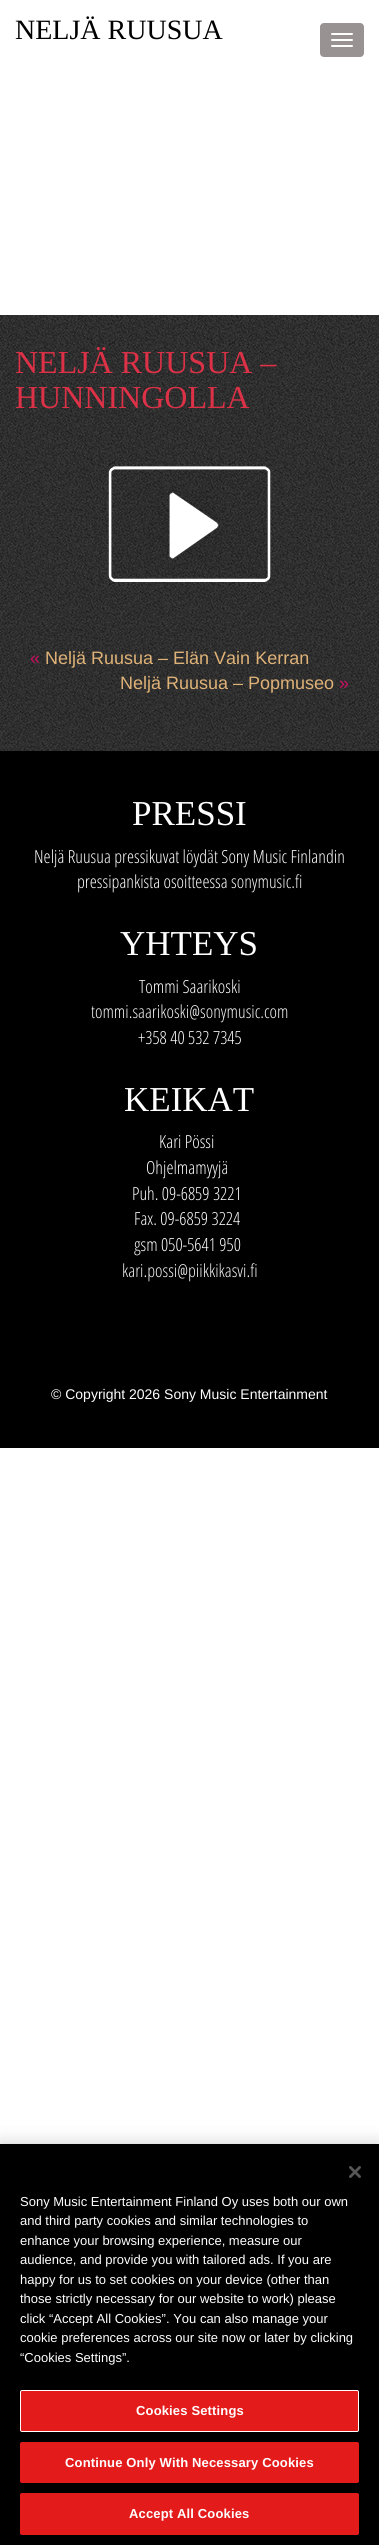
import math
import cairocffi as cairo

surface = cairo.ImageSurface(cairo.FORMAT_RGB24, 379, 2545)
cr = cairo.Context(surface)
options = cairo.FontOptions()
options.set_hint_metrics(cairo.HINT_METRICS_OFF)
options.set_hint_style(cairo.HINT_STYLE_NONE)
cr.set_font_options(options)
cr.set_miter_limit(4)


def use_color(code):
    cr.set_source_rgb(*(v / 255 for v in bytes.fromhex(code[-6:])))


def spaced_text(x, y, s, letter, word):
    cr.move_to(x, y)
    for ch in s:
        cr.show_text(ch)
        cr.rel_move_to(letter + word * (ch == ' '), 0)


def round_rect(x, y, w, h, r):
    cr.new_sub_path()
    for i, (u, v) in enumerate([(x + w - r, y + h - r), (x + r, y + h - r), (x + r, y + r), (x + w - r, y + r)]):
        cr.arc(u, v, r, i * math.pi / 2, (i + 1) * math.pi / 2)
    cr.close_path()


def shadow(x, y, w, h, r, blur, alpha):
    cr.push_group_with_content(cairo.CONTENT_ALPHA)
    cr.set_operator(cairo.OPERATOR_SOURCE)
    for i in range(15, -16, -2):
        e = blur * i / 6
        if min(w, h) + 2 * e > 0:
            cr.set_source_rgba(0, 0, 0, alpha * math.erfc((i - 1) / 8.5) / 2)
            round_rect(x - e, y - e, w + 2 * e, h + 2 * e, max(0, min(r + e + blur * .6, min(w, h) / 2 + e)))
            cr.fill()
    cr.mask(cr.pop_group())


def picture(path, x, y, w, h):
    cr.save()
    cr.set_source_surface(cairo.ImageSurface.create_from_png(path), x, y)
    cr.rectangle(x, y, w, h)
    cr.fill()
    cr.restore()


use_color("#ffffff")
cr.paint()
cr.select_font_face("Liberation Serif")
cr.set_font_size(28)
use_color("#000000")
cr.move_to(15, 39)
cr.show_text("NELJÄ RUUSUA")
use_color("#989292")
round_rect(320, 23, 44, 34, 4)
cr.fill()
use_color("#ffffff")
round_rect(331, 33, 22, 2, 1)
cr.fill()
round_rect(331, 39, 22, 2, 1)
cr.fill()
round_rect(331, 45, 22, 2, 1)
cr.fill()
picture("img1.png", 0, 315, 379, 436)
cr.set_font_size(32)
use_color("#dd3147")
cr.move_to(15, 373)
cr.show_text("NELJÄ RUUSUA –")
cr.move_to(15, 408)
cr.show_text("HUNNINGOLLA")
picture("img2.png", 108, 466, 163, 116)
cr.select_font_face("Liberation Sans")
cr.set_font_size(18)
use_color("#c90f61")
cr.move_to(30, 664)
cr.show_text("«")
use_color("#dfb277")
cr.move_to(45, 664)
cr.show_text("Neljä Ruusua – Elän Vain Kerran")
cr.move_to(120, 689)
cr.show_text("Neljä Ruusua – Popmuseo")
use_color("#c90f61")
cr.move_to(339, 689)
cr.show_text("»")
use_color("#000000")
cr.rectangle(0, 751, 379, 697)
cr.fill()
cr.select_font_face("Liberation Serif")
cr.set_font_size(35)
use_color("#ffffff")
cr.move_to(132, 825)
cr.show_text("PRESSI")
cr.select_font_face("Open Sans Condensed Light")
cr.set_font_size(18)
cr.move_to(34, 863)
cr.show_text("Neljä Ruusua pressikuvat löydät Sony Music Finlandin")
cr.move_to(77, 888)
cr.show_text("pressipankista osoitteessa")
use_color("#f5f5f5")
cr.move_to(231, 888)
cr.show_text("sonymusic.fi")
cr.select_font_face("Liberation Serif")
cr.set_font_size(35)
use_color("#ffffff")
cr.move_to(120, 955)
cr.show_text("YHTEYS")
cr.select_font_face("Open Sans Condensed Light")
cr.set_font_size(18)
cr.move_to(139, 993)
cr.show_text("Tommi Saarikoski")
use_color("#f5f5f5")
cr.move_to(91, 1018)
cr.show_text("tommi.saarikoski@sonymusic.com")
use_color("#ffffff")
cr.move_to(138, 1044)
cr.show_text("+358 40 532 7345")
cr.select_font_face("Liberation Serif")
cr.set_font_size(35)
cr.move_to(124, 1111)
cr.show_text("KEIKAT")
cr.select_font_face("Open Sans Condensed Light")
cr.set_font_size(18)
cr.move_to(159, 1148)
cr.show_text("Kari Pössi")
cr.move_to(146, 1174)
cr.show_text("Ohjelmamyyjä")
cr.move_to(132, 1200)
cr.show_text("Puh. 09-6859 3221")
cr.move_to(134, 1225)
cr.show_text("Fax. 09-6859 3224")
cr.move_to(134, 1251)
cr.show_text("gsm 050-5641 950")
use_color("#f5f5f5")
cr.move_to(122, 1277)
cr.show_text("kari.possi@piikkikasvi.fi")
cr.select_font_face("Liberation Sans")
cr.set_font_size(14)
use_color("#ffffff")
cr.move_to(51, 1399)
cr.show_text("© Copyright 2026 Sony Music Entertainment")
use_color("#000000")
shadow(0, 2144, 379, 401, 0, 9, 0.2)
use_color("#000000")
cr.rectangle(0, 2144, 379, 401)
cr.fill()
picture("img3.png", 349, 2166, 12, 12)
cr.set_font_size(13)
use_color("#ffffff")
cr.move_to(20, 2206)
cr.show_text("Sony Music Entertainment Finland Oy uses both our own")
cr.move_to(20, 2225)
cr.show_text("and third party cookies and similar technologies to")
cr.move_to(20, 2245)
cr.show_text("enhance your browsing experience, measure our")
cr.move_to(20, 2264)
cr.show_text("audience, and provide you with tailored ads. If you are")
cr.move_to(20, 2284)
cr.show_text("happy for us to set cookies on your device (other than")
cr.move_to(20, 2303)
cr.show_text("those strictly necessary for our website to work) please")
cr.move_to(20, 2323)
cr.show_text("click “Accept All Cookies”. You can also manage your")
cr.move_to(20, 2342)
cr.show_text("cookie preferences across our site now or later by clicking")
cr.move_to(20, 2362)
cr.show_text("“Cookies Settings”.")
use_color("#e41b1b")
round_rect(20.5, 2390.5, 338, 41, 1.5)
cr.fill_preserve()
use_color("#ffffff")
cr.set_line_width(1)
cr.stroke()
cr.select_font_face("Liberation Sans", cairo.FONT_SLANT_NORMAL, cairo.FONT_WEIGHT_BOLD)
spaced_text(136, 2415, "Cookies Settings", 0.15, 0)
use_color("#e41b1b")
round_rect(20.5, 2442.5, 338, 40, 1.5)
cr.fill_preserve()
cr.stroke()
use_color("#ffffff")
spaced_text(65, 2467, "Continue Only With Necessary Cookies", 0.15, 0)
use_color("#e41b1b")
round_rect(20.5, 2493.5, 338, 41, 1.5)
cr.fill_preserve()
cr.stroke()
use_color("#ffffff")
spaced_text(129, 2518, "Accept All Cookies", 0.15, 0)
surface.write_to_png("result.png")
